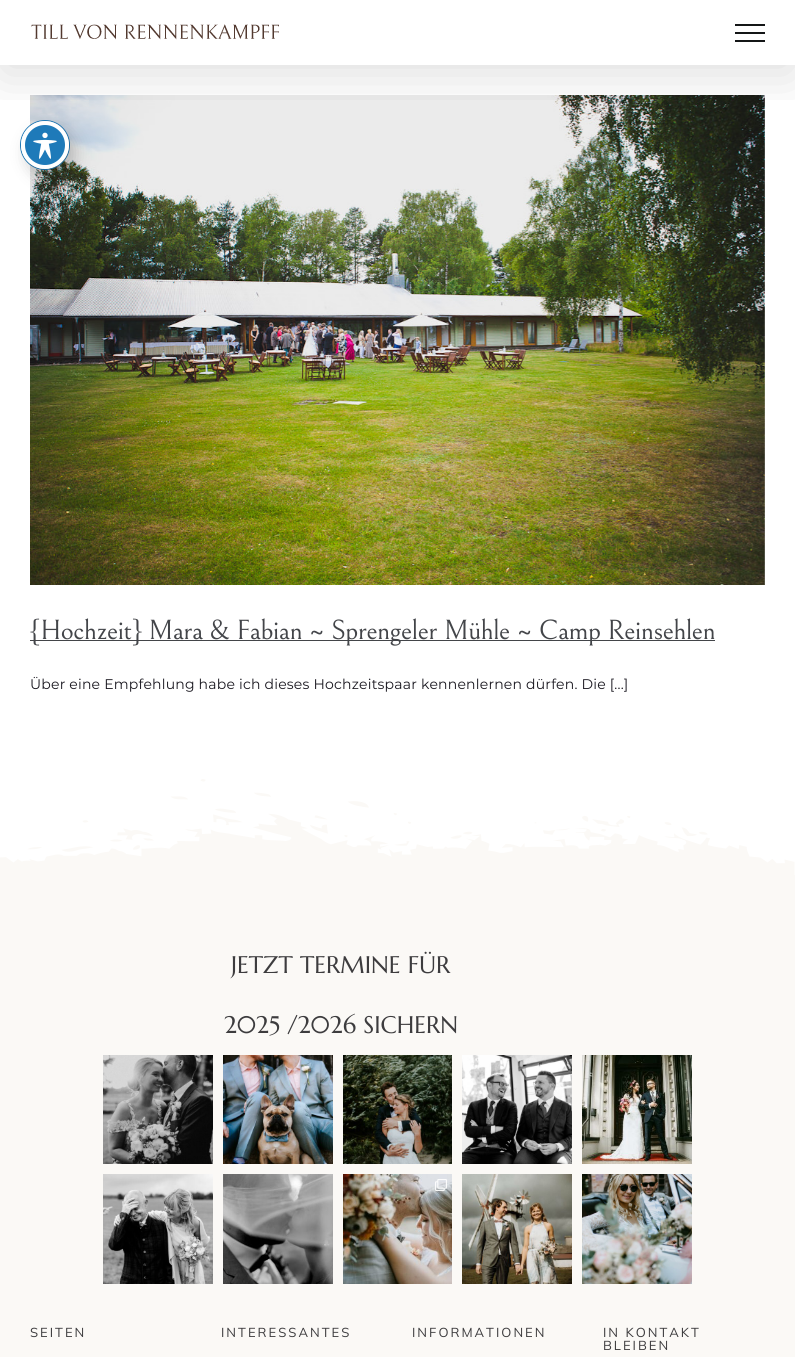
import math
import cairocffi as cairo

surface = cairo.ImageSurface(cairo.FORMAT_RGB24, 795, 1357)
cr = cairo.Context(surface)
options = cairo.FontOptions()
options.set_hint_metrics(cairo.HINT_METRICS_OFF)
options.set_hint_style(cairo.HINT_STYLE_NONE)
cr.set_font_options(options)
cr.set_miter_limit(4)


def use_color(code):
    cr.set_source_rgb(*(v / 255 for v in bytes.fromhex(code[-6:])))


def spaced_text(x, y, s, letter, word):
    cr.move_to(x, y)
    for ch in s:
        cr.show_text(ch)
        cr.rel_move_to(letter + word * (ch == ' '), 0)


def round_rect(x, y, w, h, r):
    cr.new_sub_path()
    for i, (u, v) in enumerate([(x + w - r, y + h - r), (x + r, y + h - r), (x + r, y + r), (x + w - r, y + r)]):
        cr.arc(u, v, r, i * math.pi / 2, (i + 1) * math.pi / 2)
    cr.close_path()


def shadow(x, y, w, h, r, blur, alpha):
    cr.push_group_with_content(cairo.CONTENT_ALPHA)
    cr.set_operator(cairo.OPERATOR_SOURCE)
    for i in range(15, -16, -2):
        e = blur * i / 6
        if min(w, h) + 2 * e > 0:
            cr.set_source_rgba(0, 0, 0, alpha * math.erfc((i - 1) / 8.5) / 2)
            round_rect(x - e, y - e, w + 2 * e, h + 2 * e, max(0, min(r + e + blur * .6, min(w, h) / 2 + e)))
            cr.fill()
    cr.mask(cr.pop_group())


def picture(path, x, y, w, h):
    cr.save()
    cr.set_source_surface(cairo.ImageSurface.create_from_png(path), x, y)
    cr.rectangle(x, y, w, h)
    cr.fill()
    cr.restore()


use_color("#ffffff")
cr.paint()
picture("img3.png", 30, 95, 735, 490)
cr.arc(45, 145, 24.5, 0, 2 * math.pi)
use_color("#1e7ab9")
cr.set_line_width(1)
cr.stroke()
use_color("#000000")
shadow(27, 129, 48, 48, 24, 8, 0.2)
use_color("#1e7ab9")
cr.arc(45, 145, 22, 0, 2 * math.pi)
cr.fill_preserve()
use_color("#ffffff")
cr.set_line_width(4)
cr.stroke()
picture("img1.png", 33, 132, 24, 27)
cr.save()
cr.rectangle(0, 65, 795, 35)
cr.clip()
use_color("#000000")
shadow(2, 12, 791, 61, 0, 25, 0.14)
cr.restore()
picture("img2.png", 31, 24, 248, 16)
use_color("#141617")
cr.rectangle(735, 24, 30, 2)
cr.fill()
cr.rectangle(735, 32, 30, 2)
cr.fill()
cr.rectangle(735, 40, 30, 2)
cr.fill()
use_color("#434549")
cr.rectangle(30, 640, 685, 1)
cr.fill()
cr.select_font_face("Bellefair")
cr.set_font_size(28)
spaced_text(30, 639, "{Hochzeit} Mara & Fabian ~ Sprengeler Mühle ~ Camp Reinsehlen", -0.42, 0)
cr.select_font_face("Montserrat")
cr.set_font_size(14)
use_color("#1a1820")
spaced_text(30, 689, "Über eine Empfehlung habe ich dieses Hochzeitspaar kennenlernen dürfen. Die [...]", 0.2, 0)
picture("img4.png", 0, 779, 795, 96)
use_color("#fbf9f6")
cr.rectangle(0, 875, 795, 482)
cr.fill()
cr.select_font_face("Marcellus")
cr.set_font_size(24)
use_color("#3d3c3e")
cr.move_to(231, 973)
cr.show_text("JETZT TERMINE FÜR")
cr.move_to(224, 1033)
cr.show_text("2025 /2026 SICHERN")
picture("img5.png", 103, 1055, 110, 109)
picture("img6.png", 223, 1055, 110, 109)
picture("img7.png", 343, 1055, 109, 109)
picture("img8.png", 462, 1055, 110, 109)
picture("img9.png", 582, 1055, 110, 109)
picture("img10.png", 103, 1174, 110, 110)
picture("img11.png", 223, 1174, 110, 110)
picture("img12.png", 343, 1174, 109, 110)
picture("img13.png", 435, 1179, 12, 12)
picture("img14.png", 462, 1174, 110, 110)
picture("img15.png", 582, 1174, 110, 110)
cr.select_font_face("Mulish")
cr.set_font_size(13)
spaced_text(30, 1337, "SEITEN", 2, 0)
spaced_text(221, 1337, "INTERESSANTES", 2, 0)
spaced_text(412, 1337, "INFORMATIONEN", 2, 0)
spaced_text(603, 1337, "IN KONTAKT", 2, 0)
spaced_text(603, 1350, "BLEIBEN", 2, 0)
surface.write_to_png("result.png")
